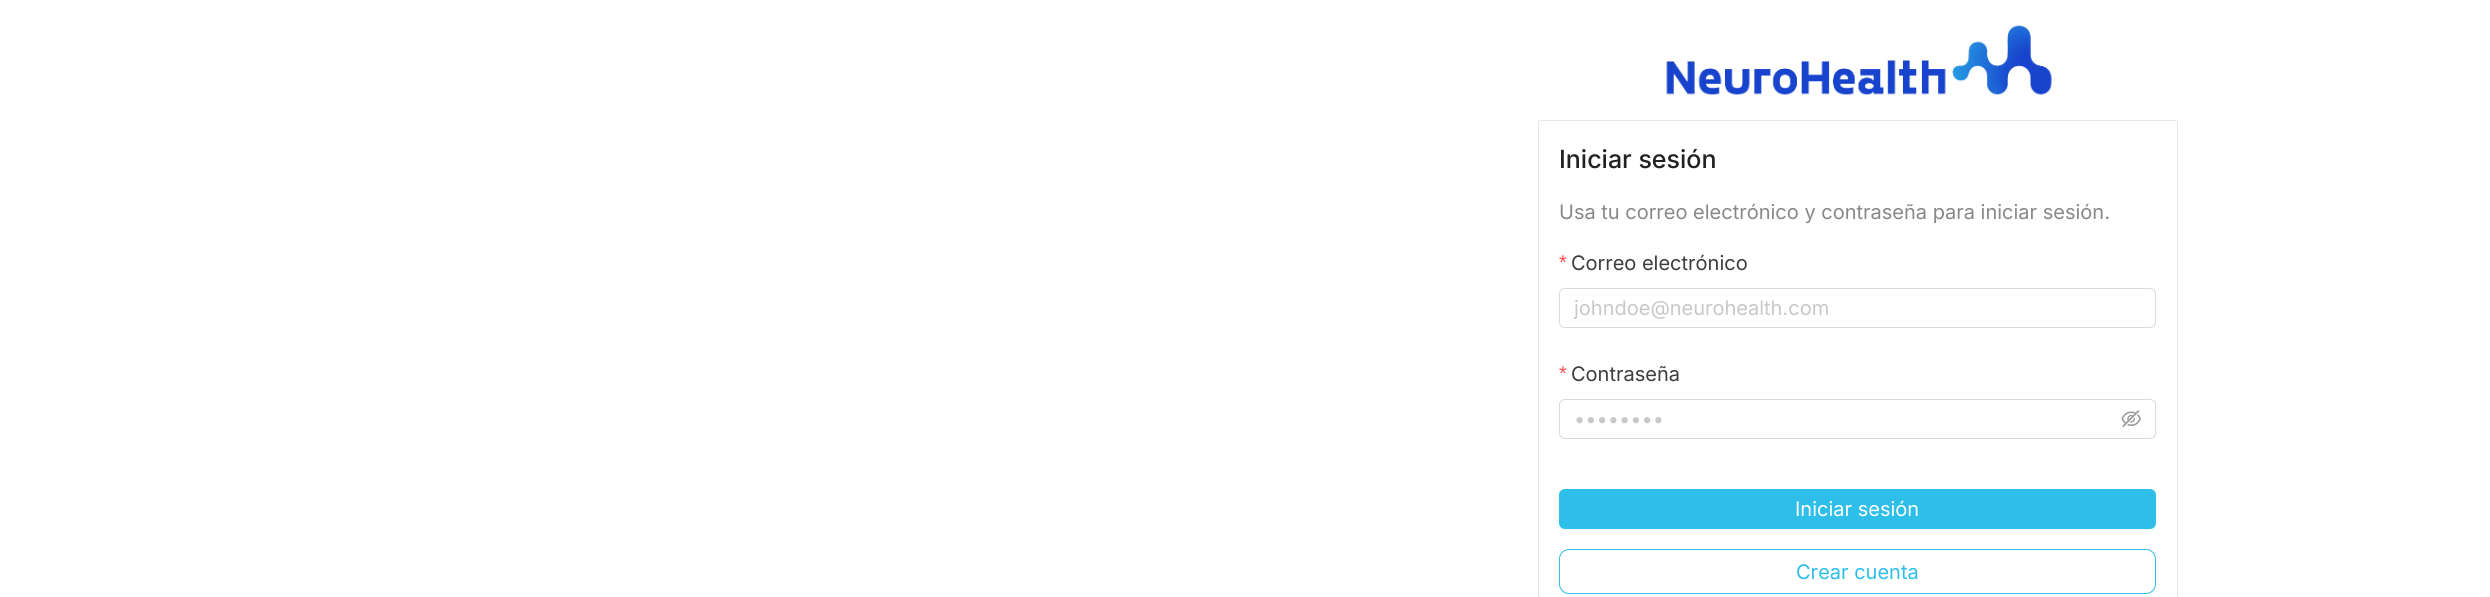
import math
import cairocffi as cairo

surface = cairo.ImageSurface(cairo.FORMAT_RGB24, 2490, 597)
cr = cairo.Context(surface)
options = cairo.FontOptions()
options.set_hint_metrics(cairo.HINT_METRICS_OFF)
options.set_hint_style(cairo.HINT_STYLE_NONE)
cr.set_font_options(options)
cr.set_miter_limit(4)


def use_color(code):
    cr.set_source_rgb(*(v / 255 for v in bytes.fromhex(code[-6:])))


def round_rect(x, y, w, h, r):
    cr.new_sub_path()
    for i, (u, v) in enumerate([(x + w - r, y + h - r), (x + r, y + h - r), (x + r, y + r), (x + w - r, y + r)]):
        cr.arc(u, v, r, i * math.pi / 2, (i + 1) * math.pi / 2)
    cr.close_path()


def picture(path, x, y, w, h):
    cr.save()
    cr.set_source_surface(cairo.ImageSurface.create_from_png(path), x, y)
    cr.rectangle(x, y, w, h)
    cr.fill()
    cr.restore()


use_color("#ffffff")
cr.paint()
picture("img1.png", 1666, 25, 386, 70)
round_rect(1538.5, 120.5, 639, 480, 2)
use_color("#e5e7eb")
cr.set_line_width(1)
cr.stroke()
cr.select_font_face("Inter Medium")
cr.set_font_size(25)
use_color("#222222")
cr.move_to(1559, 168)
cr.show_text("Iniciar sesión")
cr.select_font_face("Inter")
cr.set_font_size(20)
use_color("#888888")
cr.move_to(1559, 219)
cr.show_text("Usa tu correo electrónico y contraseña para iniciar sesión.")
cr.select_font_face("Liberation Sans")
use_color("#ff4d4f")
cr.move_to(1559, 269)
cr.show_text("*")
cr.select_font_face("Inter")
use_color("#3d3d3d")
cr.move_to(1571, 270)
cr.show_text("Correo electrónico")
round_rect(1559.5, 288.5, 596, 39, 5.5)
use_color("#d9d9d9")
cr.stroke()
use_color("#c8c8c8")
cr.move_to(1574, 315)
cr.show_text("johndoe@neurohealth.com")
cr.select_font_face("Liberation Sans")
use_color("#ff4d4f")
cr.move_to(1559, 380)
cr.show_text("*")
cr.select_font_face("Inter")
use_color("#3d3d3d")
cr.move_to(1571, 381)
cr.show_text("Contraseña")
round_rect(1559.5, 399.5, 596, 39, 5.5)
use_color("#d9d9d9")
cr.stroke()
use_color("#c8c8c8")
cr.move_to(1574, 426)
cr.show_text("••••••••")
picture("img2.png", 2121, 410, 20, 18)
use_color("#f0feff")
cr.new_path()
cr.move_to(1559, 524)
cr.curve_to(1559, 528, 1561, 531, 1565, 531)
cr.line_to(2150, 531)
cr.curve_to(2154, 531, 2156, 528, 2156, 524)
cr.curve_to(2155, 527, 2153, 529, 2150, 529)
cr.line_to(1565, 529)
cr.curve_to(1562, 529, 1560, 527, 1559, 524)
cr.close_path()
cr.fill()
use_color("#2dbeea")
round_rect(1559, 489, 597, 40, 6)
cr.fill()
use_color("#ffffff")
cr.move_to(1795, 516)
cr.show_text("Iniciar sesión")
round_rect(1559.5, 549.5, 596, 44, 9.5)
use_color("#2dbeea")
cr.stroke()
cr.move_to(1796, 579)
cr.show_text("Crear cuenta")
surface.write_to_png("result.png")
